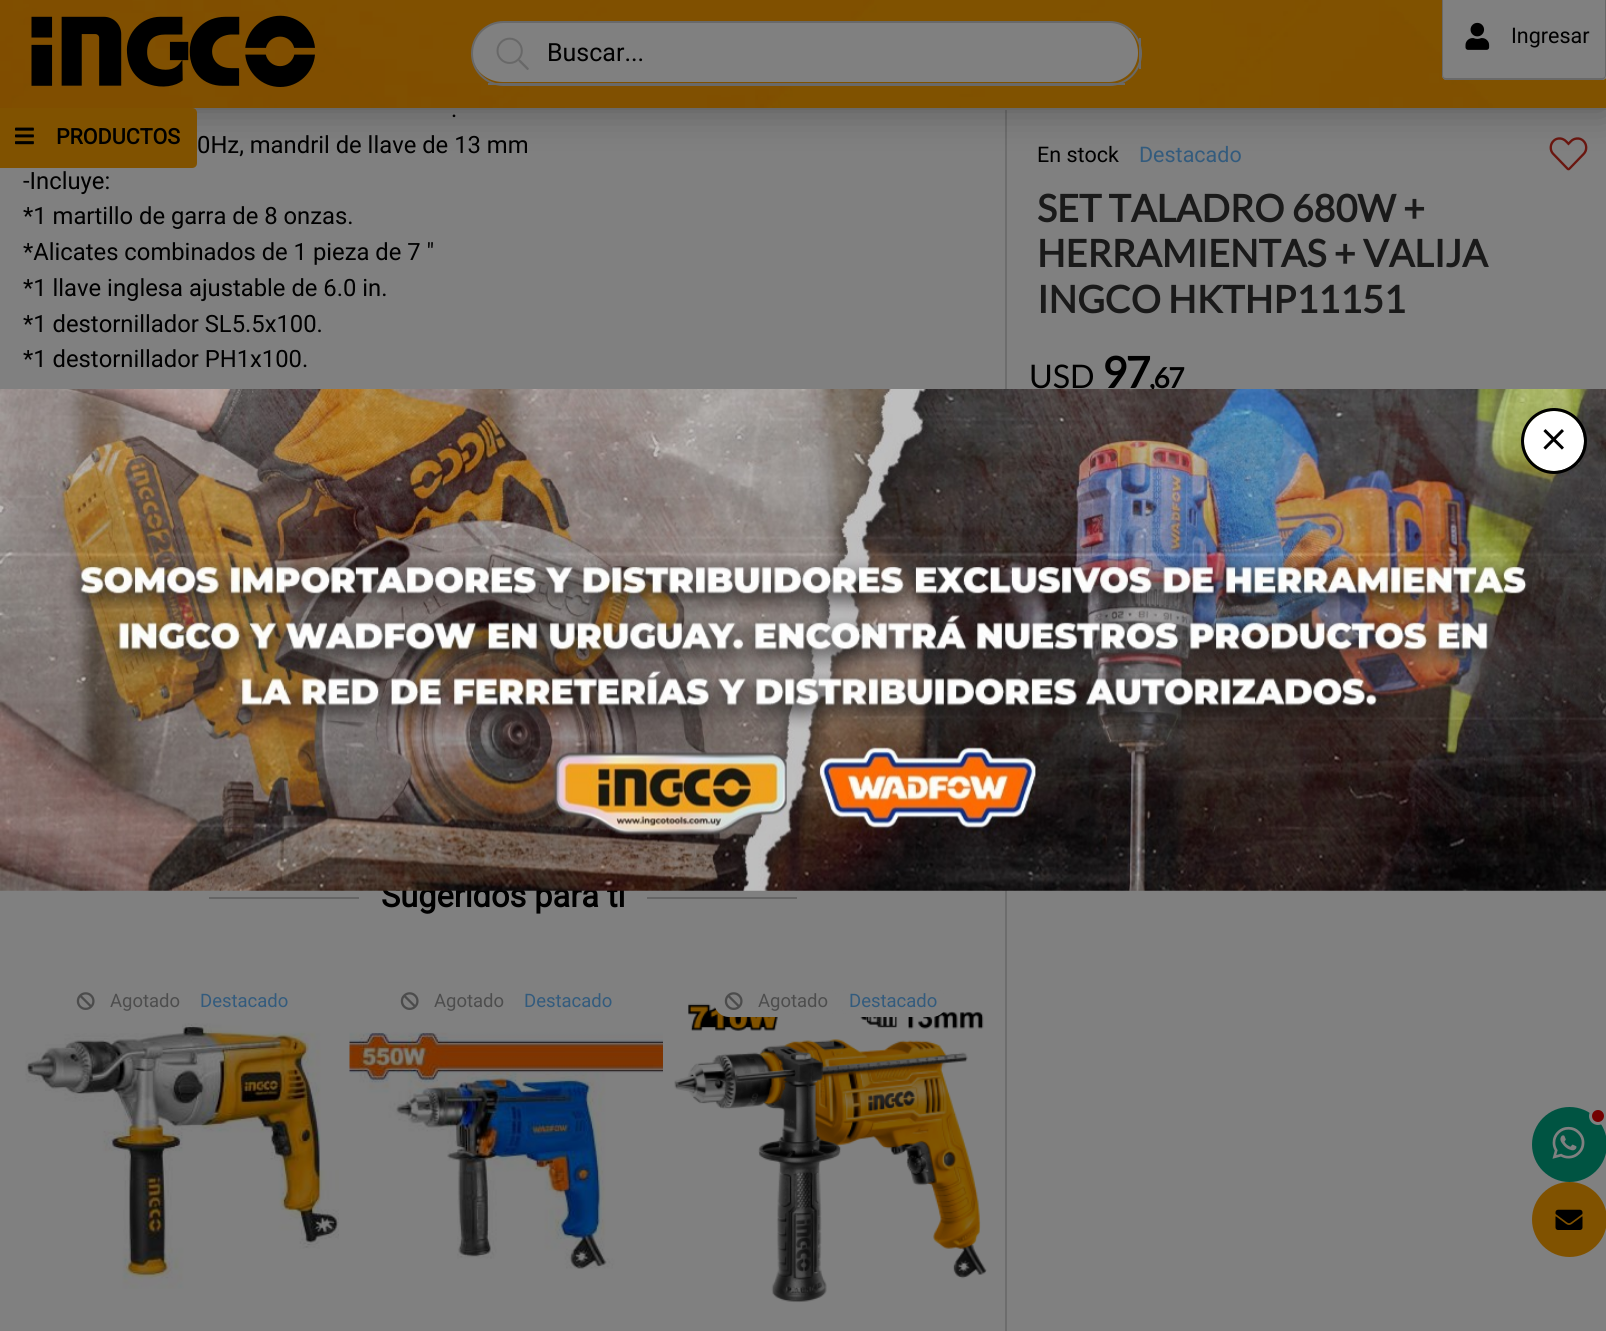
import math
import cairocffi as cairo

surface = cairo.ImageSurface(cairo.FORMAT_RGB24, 1606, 1331)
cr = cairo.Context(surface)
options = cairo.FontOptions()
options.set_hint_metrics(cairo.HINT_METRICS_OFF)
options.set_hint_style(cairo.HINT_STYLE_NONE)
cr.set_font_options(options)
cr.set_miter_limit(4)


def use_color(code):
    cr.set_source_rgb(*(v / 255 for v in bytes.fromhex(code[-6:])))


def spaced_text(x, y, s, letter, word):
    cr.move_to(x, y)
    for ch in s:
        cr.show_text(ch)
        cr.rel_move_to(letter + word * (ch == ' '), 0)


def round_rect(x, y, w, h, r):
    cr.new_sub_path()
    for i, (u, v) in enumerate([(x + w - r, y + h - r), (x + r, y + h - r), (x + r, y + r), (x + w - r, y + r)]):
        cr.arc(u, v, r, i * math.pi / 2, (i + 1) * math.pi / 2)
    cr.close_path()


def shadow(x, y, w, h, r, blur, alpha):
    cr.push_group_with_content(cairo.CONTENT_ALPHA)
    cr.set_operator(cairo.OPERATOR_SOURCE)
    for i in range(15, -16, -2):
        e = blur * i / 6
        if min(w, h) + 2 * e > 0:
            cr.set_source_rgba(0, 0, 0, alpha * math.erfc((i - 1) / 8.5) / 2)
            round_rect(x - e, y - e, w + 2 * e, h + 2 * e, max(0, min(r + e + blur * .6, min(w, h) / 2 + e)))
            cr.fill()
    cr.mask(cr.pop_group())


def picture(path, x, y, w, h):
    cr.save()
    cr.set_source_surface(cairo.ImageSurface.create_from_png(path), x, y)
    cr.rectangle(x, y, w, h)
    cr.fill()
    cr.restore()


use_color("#808080")
cr.paint()
use_color("#6d6d6d")
cr.rectangle(1005, 110, 2, 1221)
cr.fill()
picture("img11.png", 1549, 137, 39, 34)
use_color("#000000")
shadow(0, 0, 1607, 110, 0, 19, 0.3)
picture("img1.png", 0, 0, 1606, 108)
picture("img2.png", 31, 15, 284, 72)
use_color("#808080")
cr.new_path()
cr.move_to(1442, -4)
cr.line_to(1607, -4)
cr.line_to(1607, 75)
cr.curve_to(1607, 78, 1605, 80, 1602, 80)
cr.line_to(1447, 80)
cr.curve_to(1444, 80, 1442, 78, 1442, 75)
cr.close_path()
cr.fill()
use_color("#696969")
cr.set_fill_rule(cairo.FILL_RULE_EVEN_ODD)
cr.new_path()
cr.move_to(1442, -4)
cr.line_to(1606, -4)
cr.line_to(1606, 75)
cr.curve_to(1606, 77, 1604, 80, 1602, 80)
cr.line_to(1446, 80)
cr.curve_to(1444, 80, 1442, 77, 1442, 75)
cr.close_path()
cr.move_to(1443, -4)
cr.line_to(1605, -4)
cr.line_to(1605, 75)
cr.curve_to(1605, 77, 1604, 78, 1602, 78)
cr.line_to(1446, 78)
cr.curve_to(1444, 78, 1443, 77, 1443, 75)
cr.close_path()
cr.fill()
picture("img3.png", 1465, 22, 25, 28)
cr.select_font_face("Roboto")
cr.set_font_size(21.5)
use_color("#000000")
cr.move_to(1511, 43)
cr.show_text("Ingresar")
use_color("#808080")
cr.set_fill_rule(cairo.FILL_RULE_WINDING)
cr.new_path()
cr.move_to(503, 22)
cr.line_to(1109, 22)
cr.curve_to(1125, 22, 1138, 36, 1138, 53)
cr.curve_to(1138, 69, 1125, 82, 1109, 82)
cr.line_to(503, 82)
cr.curve_to(486, 82, 472, 69, 472, 53)
cr.curve_to(472, 36, 486, 22, 503, 22)
cr.close_path()
cr.fill()
round_rect(472, 22, 669, 63, 31.5)
use_color("#696969")
cr.stroke()
picture("img4.png", 496, 37, 33, 33)
cr.rectangle(1139, 38, 2, 31)
cr.fill()
cr.rectangle(488, 83, 637, 2)
cr.fill()
cr.set_font_size(25)
use_color("#000000")
cr.move_to(547, 61)
cr.show_text("Buscar...")
use_color("#696969")
cr.rectangle(192, 108, 1414, 2)
cr.fill()
use_color("#805200")
cr.new_path()
cr.move_to(0, 108)
cr.line_to(192, 108)
cr.curve_to(195, 108, 197, 110, 197, 113)
cr.line_to(197, 163)
cr.curve_to(197, 166, 195, 168, 192, 168)
cr.line_to(0, 168)
cr.close_path()
cr.fill()
picture("img5.png", 15, 127, 19, 18)
cr.select_font_face("Roboto", cairo.FONT_SLANT_NORMAL, cairo.FONT_WEIGHT_BOLD)
cr.set_font_size(21.5)
use_color("#000000")
cr.move_to(56, 144)
cr.show_text("PRODUCTOS")
use_color("#005442")
cr.new_path()
cr.arc(1569.5, 1144.5, 37.5, 0, 2 * math.pi)
cr.fill()
use_color("#740000")
cr.arc(1598, 1116, 7.5, 0, 2 * math.pi)
cr.fill_preserve()
use_color("#808080")
cr.set_line_width(3)
cr.stroke()
picture("img6.png", 1552, 1126, 33, 33)
cr.select_font_face("Roboto")
cr.set_font_size(23.8)
use_color("#000000")
cr.move_to(451, 117)
cr.show_text(".")
cr.move_to(197, 153)
cr.show_text("0Hz, mandril de llave de 13 mm")
cr.move_to(23, 189)
cr.show_text("-Incluye:")
cr.move_to(23, 224)
cr.show_text("*1 martillo de garra de 8 onzas.")
cr.move_to(23, 260)
cr.show_text("*Alicates combinados de 1 pieza de 7 \"")
cr.move_to(23, 296)
cr.show_text("*1 llave inglesa ajustable de 6.0 in.")
cr.move_to(23, 332)
cr.show_text("*1 destornillador SL5.5x100.")
cr.move_to(23, 367)
cr.show_text("*1 destornillador PH1x100.")
use_color("#656565")
cr.rectangle(209, 897, 150, 2)
cr.fill()
cr.select_font_face("Roboto", cairo.FONT_SLANT_NORMAL, cairo.FONT_WEIGHT_BOLD)
cr.set_font_size(32.5)
use_color("#000000")
cr.move_to(381, 907)
cr.show_text("Sugeridos para ti")
use_color("#656565")
cr.rectangle(647, 897, 150, 2)
cr.fill()
picture("img7.png", 76, 992, 19, 18)
cr.select_font_face("Roboto")
cr.set_font_size(18.5)
use_color("#4d4d4d")
cr.move_to(110, 1007)
cr.show_text("Agotado")
use_color("#335b7d")
cr.move_to(200, 1007)
cr.show_text("Destacado")
picture("img8.png", 25, 1023, 314, 266)
picture("img7.png", 400, 992, 19, 18)
use_color("#4d4d4d")
cr.move_to(434, 1007)
cr.show_text("Agotado")
use_color("#335b7d")
cr.move_to(524, 1007)
cr.show_text("Destacado")
picture("img9.png", 349, 1032, 314, 237)
picture("img10.png", 674, 1003, 313, 300)
use_color("#808080")
round_rect(714, 987, 125, 30, 15)
cr.fill()
picture("img7.png", 724, 992, 19, 18)
use_color("#4d4d4d")
cr.move_to(758, 1007)
cr.show_text("Agotado")
use_color("#808080")
round_rect(839, 987, 108, 30, 15)
cr.fill()
use_color("#335b7d")
cr.move_to(849, 1007)
cr.show_text("Destacado")
cr.set_font_size(21.5)
use_color("#000000")
cr.move_to(1037, 162)
cr.show_text("En stock")
use_color("#335b7d")
cr.move_to(1139, 162)
cr.show_text("Destacado")
cr.select_font_face("Lato", cairo.FONT_SLANT_NORMAL, cairo.FONT_WEIGHT_BOLD)
cr.set_font_size(37.75)
use_color("#1a1a1a")
cr.move_to(1037, 222)
cr.show_text("SET TALADRO 680W +")
cr.move_to(1037, 267)
cr.show_text("HERRAMIENTAS + VALIJA")
cr.move_to(1037, 313)
cr.show_text("INGCO HKTHP11151")
cr.select_font_face("Lato")
cr.set_font_size(32.5)
use_color("#000000")
cr.move_to(1029, 388)
cr.show_text("USD")
cr.select_font_face("Lato", cairo.FONT_SLANT_NORMAL, cairo.FONT_WEIGHT_BOLD)
cr.set_font_size(43)
spaced_text(1102, 388, "97", -1.5, 0)
cr.set_font_size(28)
spaced_text(1149, 388, ",67", -1.5, 0)
picture("img12.png", 0, 389, 1606, 502)
use_color("#ffffff")
cr.arc(1554, 441, 30, 0, 2 * math.pi)
cr.fill()
picture("img13.png", 1543, 429, 21, 21)
cr.arc(1554, 441, 31.5, 0, 2 * math.pi)
use_color("#000000")
cr.stroke()
use_color("#805200")
cr.arc(1569.5, 1219.5, 37.5, 0, 2 * math.pi)
cr.fill()
picture("img14.png", 1555, 1209, 28, 21)
surface.write_to_png("result.png")
